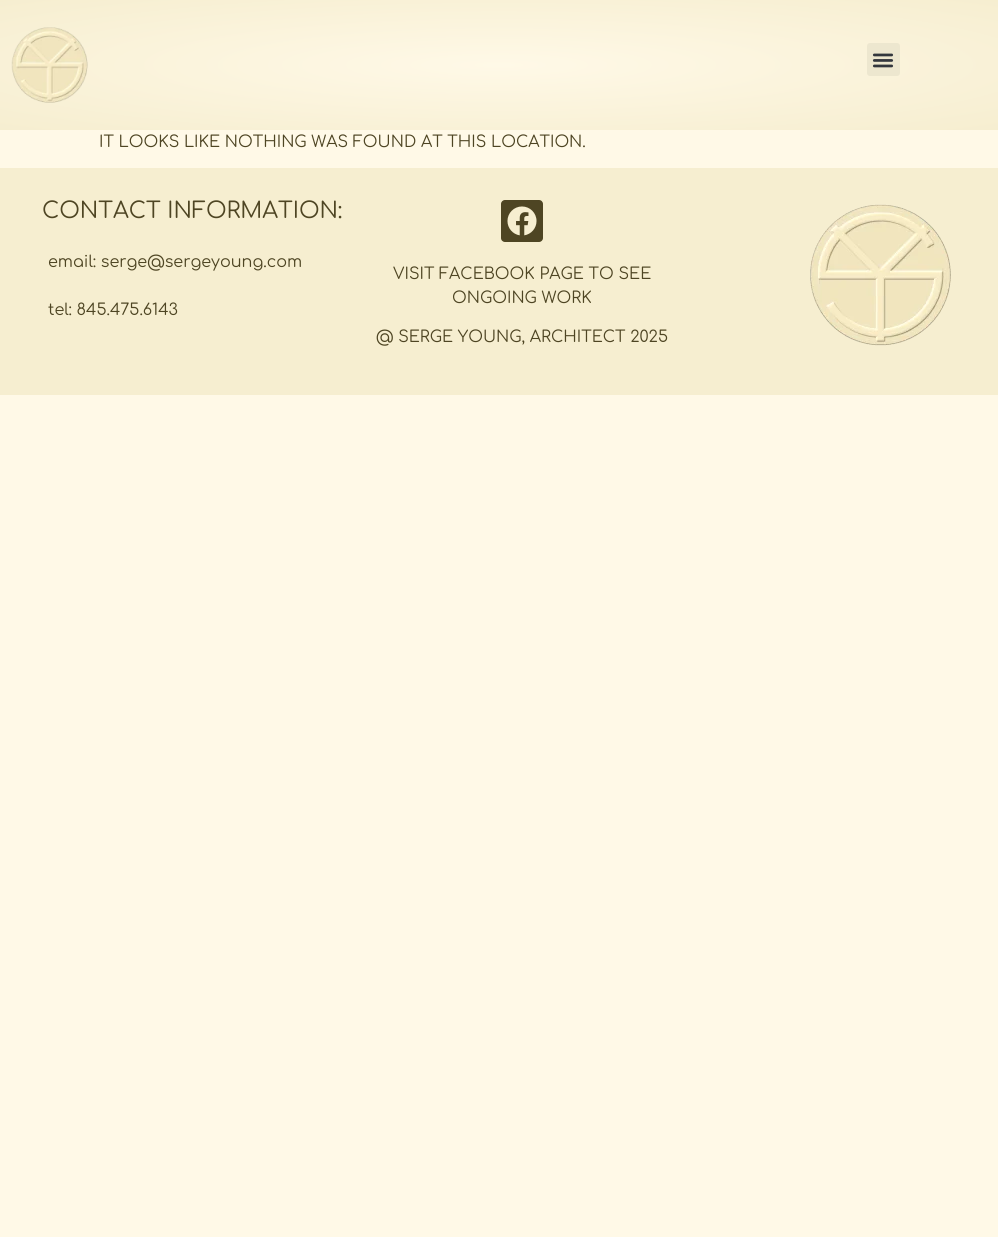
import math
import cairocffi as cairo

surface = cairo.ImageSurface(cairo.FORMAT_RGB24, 998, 1237)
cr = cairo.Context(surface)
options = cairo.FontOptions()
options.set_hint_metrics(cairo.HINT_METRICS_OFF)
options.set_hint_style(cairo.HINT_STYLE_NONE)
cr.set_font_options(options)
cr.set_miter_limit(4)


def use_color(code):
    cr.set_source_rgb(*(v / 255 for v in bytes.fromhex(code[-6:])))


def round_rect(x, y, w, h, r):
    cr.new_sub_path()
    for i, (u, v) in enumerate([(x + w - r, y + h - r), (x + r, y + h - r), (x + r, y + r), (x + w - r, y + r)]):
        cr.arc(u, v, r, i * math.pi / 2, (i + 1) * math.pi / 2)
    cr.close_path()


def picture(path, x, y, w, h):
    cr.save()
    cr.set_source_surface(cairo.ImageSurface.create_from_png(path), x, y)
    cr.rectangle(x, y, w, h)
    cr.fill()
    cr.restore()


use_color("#fff9e7")
cr.paint()
gradient = cairo.RadialGradient(0, 0, 0, 0, 0, 1)
gradient.set_matrix(cairo.Matrix(1 / 706, 0, 0, 1 / 92, -1 * 499 / 706, -1 * 65 / 92))
gradient.add_color_stop_rgba(0, 1, 0.976, 0.906, 1)
gradient.add_color_stop_rgba(1, 0.965, 0.933, 0.816, 1)
cr.set_source(gradient)
cr.rectangle(0, 0, 998, 130)
cr.fill()
picture("img1.png", 11, 27, 77, 76)
use_color("#ede7cf")
round_rect(867, 43, 33, 33, 3)
cr.fill()
picture("img2.png", 872, 53, 22, 15)
cr.select_font_face("Comfortaa")
cr.set_font_size(16)
use_color("#4e4523")
cr.move_to(99, 147)
cr.show_text("IT LOOKS LIKE NOTHING WAS FOUND AT THIS LOCATION.")
use_color("#f6eed0")
cr.rectangle(0, 168, 998, 227)
cr.fill()
cr.set_font_size(22.4)
use_color("#4e4523")
cr.move_to(42, 218)
cr.show_text("CONTACT INFORMATION:")
cr.set_font_size(16)
cr.move_to(48, 267)
cr.show_text("email: serge@sergeyoung.com")
cr.move_to(48, 315)
cr.show_text("tel: 845.475.6143")
round_rect(501, 200, 42, 42, 4)
cr.fill()
picture("img3.png", 507, 206, 30, 30)
cr.move_to(393, 279)
cr.show_text("VISIT FACEBOOK PAGE TO SEE")
cr.move_to(452, 303)
cr.show_text("ONGOING WORK")
cr.move_to(376, 342)
cr.show_text("@ SERGE YOUNG, ARCHITECT 2025")
picture("img4.png", 810, 204, 141, 142)
surface.write_to_png("result.png")
